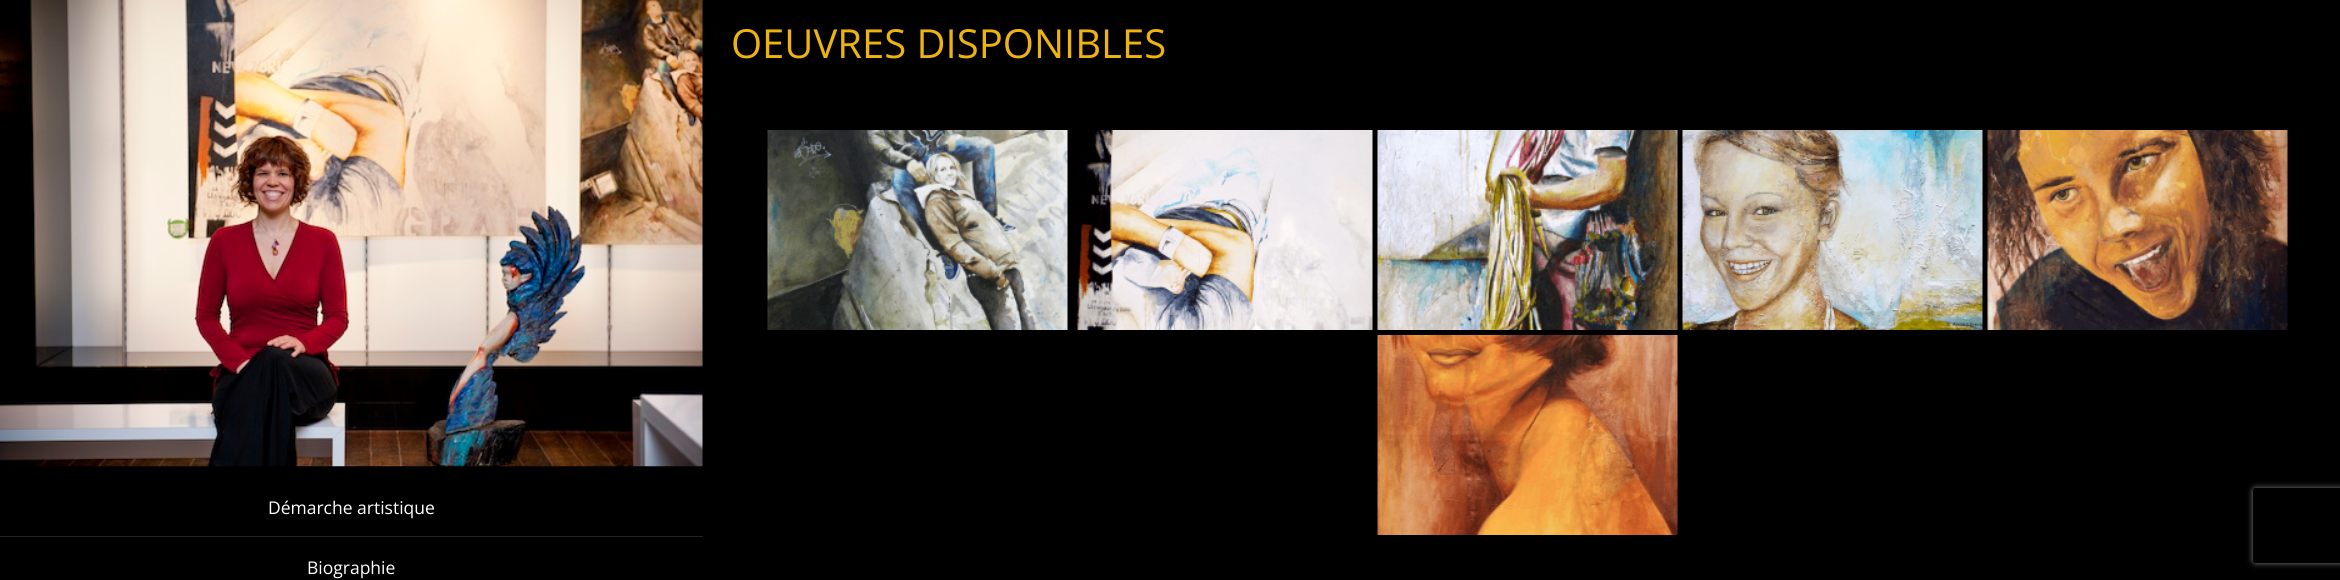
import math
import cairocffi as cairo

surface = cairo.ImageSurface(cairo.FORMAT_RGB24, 2340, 580)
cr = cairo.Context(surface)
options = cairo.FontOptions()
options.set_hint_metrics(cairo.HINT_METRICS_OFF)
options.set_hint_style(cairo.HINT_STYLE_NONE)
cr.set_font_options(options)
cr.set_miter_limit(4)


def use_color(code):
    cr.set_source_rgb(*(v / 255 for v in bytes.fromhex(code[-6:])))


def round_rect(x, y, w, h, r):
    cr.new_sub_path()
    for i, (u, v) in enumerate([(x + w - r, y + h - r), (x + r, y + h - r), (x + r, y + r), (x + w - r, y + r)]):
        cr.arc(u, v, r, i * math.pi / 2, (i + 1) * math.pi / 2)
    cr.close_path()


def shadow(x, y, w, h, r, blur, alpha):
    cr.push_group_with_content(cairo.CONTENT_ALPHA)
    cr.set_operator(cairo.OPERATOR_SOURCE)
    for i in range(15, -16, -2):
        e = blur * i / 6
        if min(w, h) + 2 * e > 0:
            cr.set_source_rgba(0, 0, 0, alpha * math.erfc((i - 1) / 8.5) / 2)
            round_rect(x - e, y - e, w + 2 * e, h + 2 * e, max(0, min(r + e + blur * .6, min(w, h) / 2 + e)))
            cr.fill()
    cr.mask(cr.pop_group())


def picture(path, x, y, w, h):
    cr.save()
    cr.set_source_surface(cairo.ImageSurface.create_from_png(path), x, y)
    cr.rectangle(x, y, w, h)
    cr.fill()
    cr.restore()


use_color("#000000")
cr.paint()
cr.select_font_face("Open Sans")
cr.set_font_size(40)
use_color("#efb30e")
cr.move_to(731, 58)
cr.show_text("OEUVRES DISPONIBLES")
picture("img1.png", 767, 130, 301, 200)
picture("img2.png", 1073, 130, 300, 200)
picture("img3.png", 1377, 130, 301, 200)
picture("img4.png", 1682, 130, 301, 200)
picture("img5.png", 1987, 130, 301, 200)
picture("img6.png", 1377, 335, 301, 200)
picture("img7.png", 0, 0, 703, 467)
use_color("#212121")
cr.rectangle(0, 536, 703, 1)
cr.fill()
cr.set_font_size(17.5)
use_color("#ffffff")
cr.move_to(268, 514)
cr.show_text("Démarche artistique")
cr.move_to(307, 574)
cr.show_text("Biographie")
cr.save()
cr.set_fill_rule(cairo.FILL_RULE_EVEN_ODD)
cr.new_path()
cr.move_to(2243, 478)
cr.line_to(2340, 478)
cr.line_to(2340, 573)
cr.line_to(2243, 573)
cr.close_path()
cr.move_to(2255.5, 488)
cr.line_to(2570.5, 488)
cr.curve_to(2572, 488, 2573, 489, 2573, 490.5)
cr.line_to(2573, 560.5)
cr.curve_to(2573, 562, 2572, 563, 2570.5, 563)
cr.line_to(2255.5, 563)
cr.curve_to(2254, 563, 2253, 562, 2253, 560.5)
cr.line_to(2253, 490.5)
cr.curve_to(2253, 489, 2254, 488, 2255.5, 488)
cr.close_path()
cr.clip()
use_color("#808080")
shadow(2253, 488, 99, 75, 2.5, 3, 1)
cr.restore()
surface.write_to_png("result.png")
